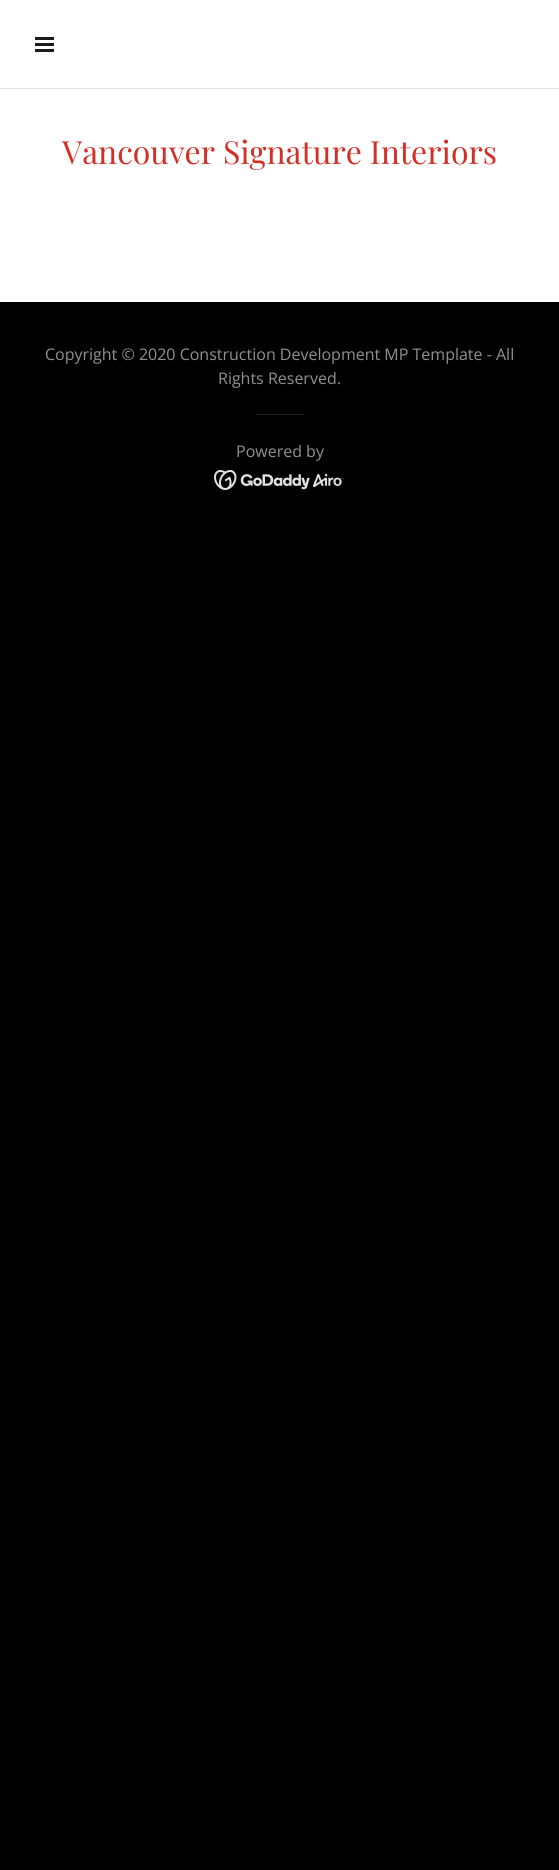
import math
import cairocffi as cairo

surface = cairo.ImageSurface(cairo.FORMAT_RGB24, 559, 1870)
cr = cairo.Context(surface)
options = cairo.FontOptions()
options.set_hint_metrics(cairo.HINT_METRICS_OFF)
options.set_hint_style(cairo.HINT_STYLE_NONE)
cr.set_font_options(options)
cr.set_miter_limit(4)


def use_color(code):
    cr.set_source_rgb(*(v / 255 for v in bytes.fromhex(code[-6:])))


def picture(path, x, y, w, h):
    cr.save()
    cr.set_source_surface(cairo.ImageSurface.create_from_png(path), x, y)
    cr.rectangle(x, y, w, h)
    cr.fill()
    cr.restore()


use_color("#000000")
cr.paint()
use_color("#ffffff")
cr.rectangle(0, 0, 559, 88)
cr.fill()
use_color("#1b1b1b")
cr.rectangle(35, 37, 19, 3)
cr.fill()
cr.rectangle(35, 43, 19, 3)
cr.fill()
cr.rectangle(35, 49, 19, 3)
cr.fill()
use_color("#e2e2e2")
cr.rectangle(0, 88, 559, 1)
cr.fill()
use_color("#ffffff")
cr.rectangle(0, 89, 559, 213)
cr.fill()
cr.select_font_face("Playfair Display")
cr.set_font_size(32)
use_color("#d22f25")
cr.move_to(62, 164)
cr.show_text("Vancouver Signature Interiors")
cr.select_font_face("Open Sans")
cr.set_font_size(16)
use_color("#919191")
cr.move_to(45, 360)
cr.show_text("Copyright © 2020 Construction Development MP Template - All")
cr.move_to(218, 384)
cr.show_text("Rights Reserved.")
use_color("#1b1b1b")
cr.rectangle(255, 414, 50, 1)
cr.fill()
use_color("#919191")
cr.move_to(236, 457)
cr.show_text("Powered by")
picture("img1.png", 214, 470, 130, 20)
surface.write_to_png("result.png")
